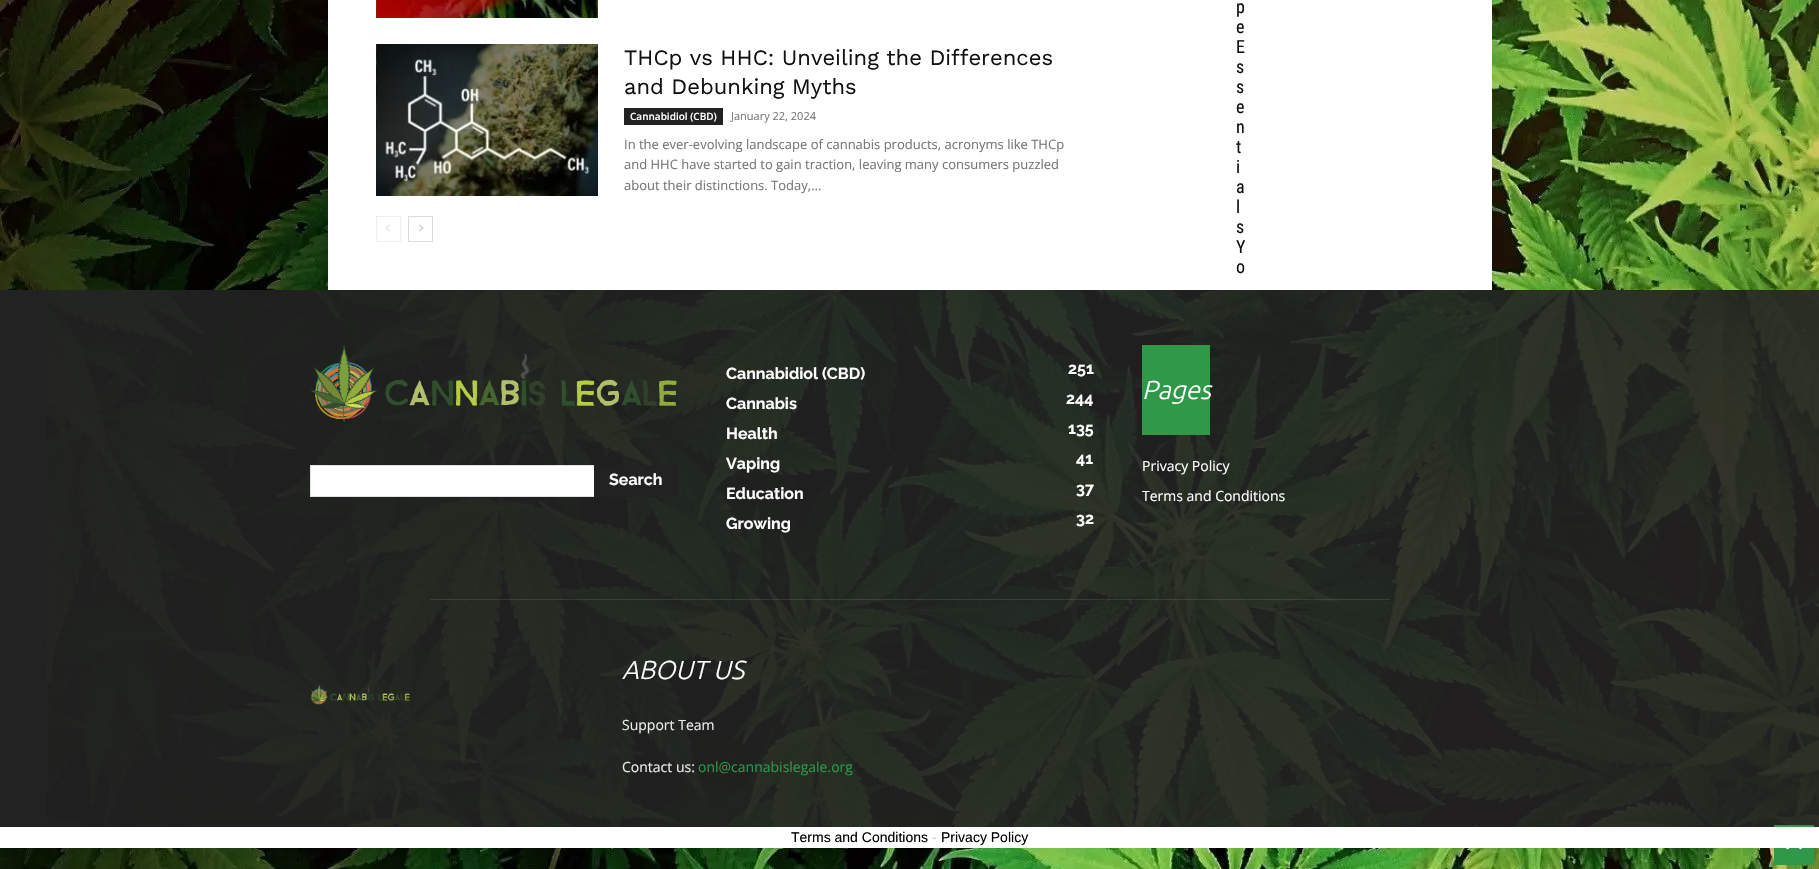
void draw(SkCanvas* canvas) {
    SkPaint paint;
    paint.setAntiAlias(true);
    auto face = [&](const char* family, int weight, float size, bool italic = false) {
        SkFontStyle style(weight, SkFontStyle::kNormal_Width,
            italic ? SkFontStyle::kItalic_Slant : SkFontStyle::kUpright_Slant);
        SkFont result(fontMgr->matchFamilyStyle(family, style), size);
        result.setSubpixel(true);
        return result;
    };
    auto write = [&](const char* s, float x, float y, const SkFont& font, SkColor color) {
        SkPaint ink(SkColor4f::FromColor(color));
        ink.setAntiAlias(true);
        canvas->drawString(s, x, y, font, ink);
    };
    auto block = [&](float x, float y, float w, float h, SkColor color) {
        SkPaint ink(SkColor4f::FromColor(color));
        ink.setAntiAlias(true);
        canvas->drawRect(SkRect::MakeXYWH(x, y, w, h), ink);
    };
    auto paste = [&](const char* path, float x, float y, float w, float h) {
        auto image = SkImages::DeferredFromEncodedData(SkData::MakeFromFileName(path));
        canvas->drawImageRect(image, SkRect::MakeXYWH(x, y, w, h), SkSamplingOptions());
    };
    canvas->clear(SK_ColorWHITE);
    paste("pic1.png", 0, 0, 1819, 869);
    block(328, 0, 1164, 290, SK_ColorWHITE);
    paste("pic2.png", 376, 0, 222, 18);
    paste("pic3.png", 376, 44, 222, 152);
    auto kFont1 = face("Work Sans", 400, 22);
    write("THCp vs HHC: Unveiling the Differences", 624, 65, kFont1, SkColorSetRGB(17, 17, 17));
    write("and Debunking Myths", 624, 94, kFont1, SkColorSetRGB(17, 17, 17));
    block(624, 108, 99, 17, SkColorSetRGB(34, 34, 34));
    auto kFont2 = face("Open Sans", 600, 10);
    write("Cannabidiol (CBD)", 630, 120, kFont2, SK_ColorWHITE);
    auto kFont3 = face("Open Sans", 400, 11);
    write("January 22, 2024", 731, 120, kFont3, SkColorSetRGB(118, 118, 118));
    auto kFont4 = face("Open Sans", 400, 13);
    write("In the ever-evolving landscape of cannabis products, acronyms like THCp", 624, 149, kFont4, SkColorSetRGB(118, 118, 118));
    write("and HHC have started to gain traction, leaving many consumers puzzled", 624, 169, kFont4, SkColorSetRGB(118, 118, 118));
    write("about their distinctions. Today,...", 624, 190, kFont4, SkColorSetRGB(118, 118, 118));
    paint.setStyle(SkPaint::kStroke_Style);
    paint.setStrokeWidth(1);
    paint.setColor(SkColorSetRGB(238, 238, 238));
    canvas->drawRect(SkRect::MakeXYWH(376.5f, 216.5f, 24, 25), paint);
    paste("pic4.png", 385, 224, 5, 8);
    paint.setColor(SkColorSetRGB(220, 220, 220));
    canvas->drawRect(SkRect::MakeXYWH(408.5f, 216.5f, 24, 25), paint);
    paste("pic5.png", 419, 224, 5, 8);
    auto kFont5 = face("Roboto Condensed", 400, 18);
    write("p", 1236, 13, kFont5, SkColorSetRGB(17, 17, 17));
    write("e", 1236, 33, kFont5, SkColorSetRGB(17, 17, 17));
    write("E", 1236, 53, kFont5, SkColorSetRGB(17, 17, 17));
    write("s", 1236, 73, kFont5, SkColorSetRGB(17, 17, 17));
    write("s", 1236, 93, kFont5, SkColorSetRGB(17, 17, 17));
    write("e", 1236, 113, kFont5, SkColorSetRGB(17, 17, 17));
    write("n", 1236, 133, kFont5, SkColorSetRGB(17, 17, 17));
    write("t", 1236, 153, kFont5, SkColorSetRGB(17, 17, 17));
    write("i", 1236, 173, kFont5, SkColorSetRGB(17, 17, 17));
    write("a", 1236, 193, kFont5, SkColorSetRGB(17, 17, 17));
    write("l", 1236, 213, kFont5, SkColorSetRGB(17, 17, 17));
    write("s", 1236, 233, kFont5, SkColorSetRGB(17, 17, 17));
    write("Y", 1236, 253, kFont5, SkColorSetRGB(17, 17, 17));
    write("o", 1236, 273, kFont5, SkColorSetRGB(17, 17, 17));
    block(0, 290, 1819, 537, SkColorSetRGB(34, 34, 34));
    paste("pic6.png", 47, 290, 1772, 537);
    paste("pic7.png", 310, 345, 367, 77);
    block(311, 466, 283, 30, SK_ColorWHITE);
    block(310, 465, 284, 1, SkColorSetRGB(225, 225, 225));
    block(310, 496, 284, 1, SkColorSetRGB(225, 225, 225));
    block(310, 465, 1, 32, SkColorSetRGB(225, 225, 225));
    block(594, 465, 84, 32, SkColorSetRGB(34, 34, 34));
    auto kFont6 = face("Raleway", 700, 16);
    write("Search", 609, 485, kFont6, SK_ColorWHITE);
    write("Cannabidiol (CBD)", 726, 379, kFont6, SK_ColorWHITE);
    write("251", 1068, 374, kFont6, SK_ColorWHITE);
    write("Cannabis", 726, 409, kFont6, SK_ColorWHITE);
    write("244", 1066, 404, kFont6, SK_ColorWHITE);
    write("Health", 726, 439, kFont6, SK_ColorWHITE);
    write("135", 1068, 434, kFont6, SK_ColorWHITE);
    write("Vaping", 726, 469, kFont6, SK_ColorWHITE);
    write("41", 1076, 464, kFont6, SK_ColorWHITE);
    write("Education", 726, 499, kFont6, SK_ColorWHITE);
    write("37", 1076, 494, kFont6, SK_ColorWHITE);
    write("Growing", 726, 529, kFont6, SK_ColorWHITE);
    write("32", 1076, 524, kFont6, SK_ColorWHITE);
    block(1142, 345, 68, 90, SkColorSetRGB(47, 153, 73));
    auto kFont7 = face("Ubuntu", 300, 26, true);
    write("Pages", 1142, 399, kFont7, SK_ColorWHITE);
    auto kFont8 = face("Open Sans", 400, 14);
    write("Privacy Policy", 1142, 471, kFont8, SK_ColorWHITE);
    write("Terms and Conditions", 1142, 501, kFont8, SK_ColorWHITE);
    block(430, 599, 960, 1, SkColorSetARGB(26, 255, 255, 255));
    paste("pic8.png", 310, 684, 100, 21);
    write("ABOUT US", 622, 679, kFont7, SK_ColorWHITE);
    write("Support Team", 622, 730, kFont8, SkColorSetRGB(234, 234, 234));
    write("Contact us:", 622, 772, kFont8, SkColorSetRGB(234, 234, 234));
    write("onl@cannabislegale.org", 698, 772, kFont8, SkColorSetRGB(47, 153, 73));
    block(1774, 825, 40, 40, SkColorSetRGB(47, 153, 73));
    block(0, 827, 1819, 21, SK_ColorWHITE);
    auto kFont9 = face("Liberation Sans", 400, 14);
    write("Terms and Conditions", 791, 842, kFont9, SK_ColorBLACK);
    write("-", 932, 842, kFont9, SkColorSetRGB(204, 204, 204));
    write("Privacy Policy", 941, 842, kFont9, SK_ColorBLACK);
    paste("pic9.png", 1786, 848, 16, 2);
}
